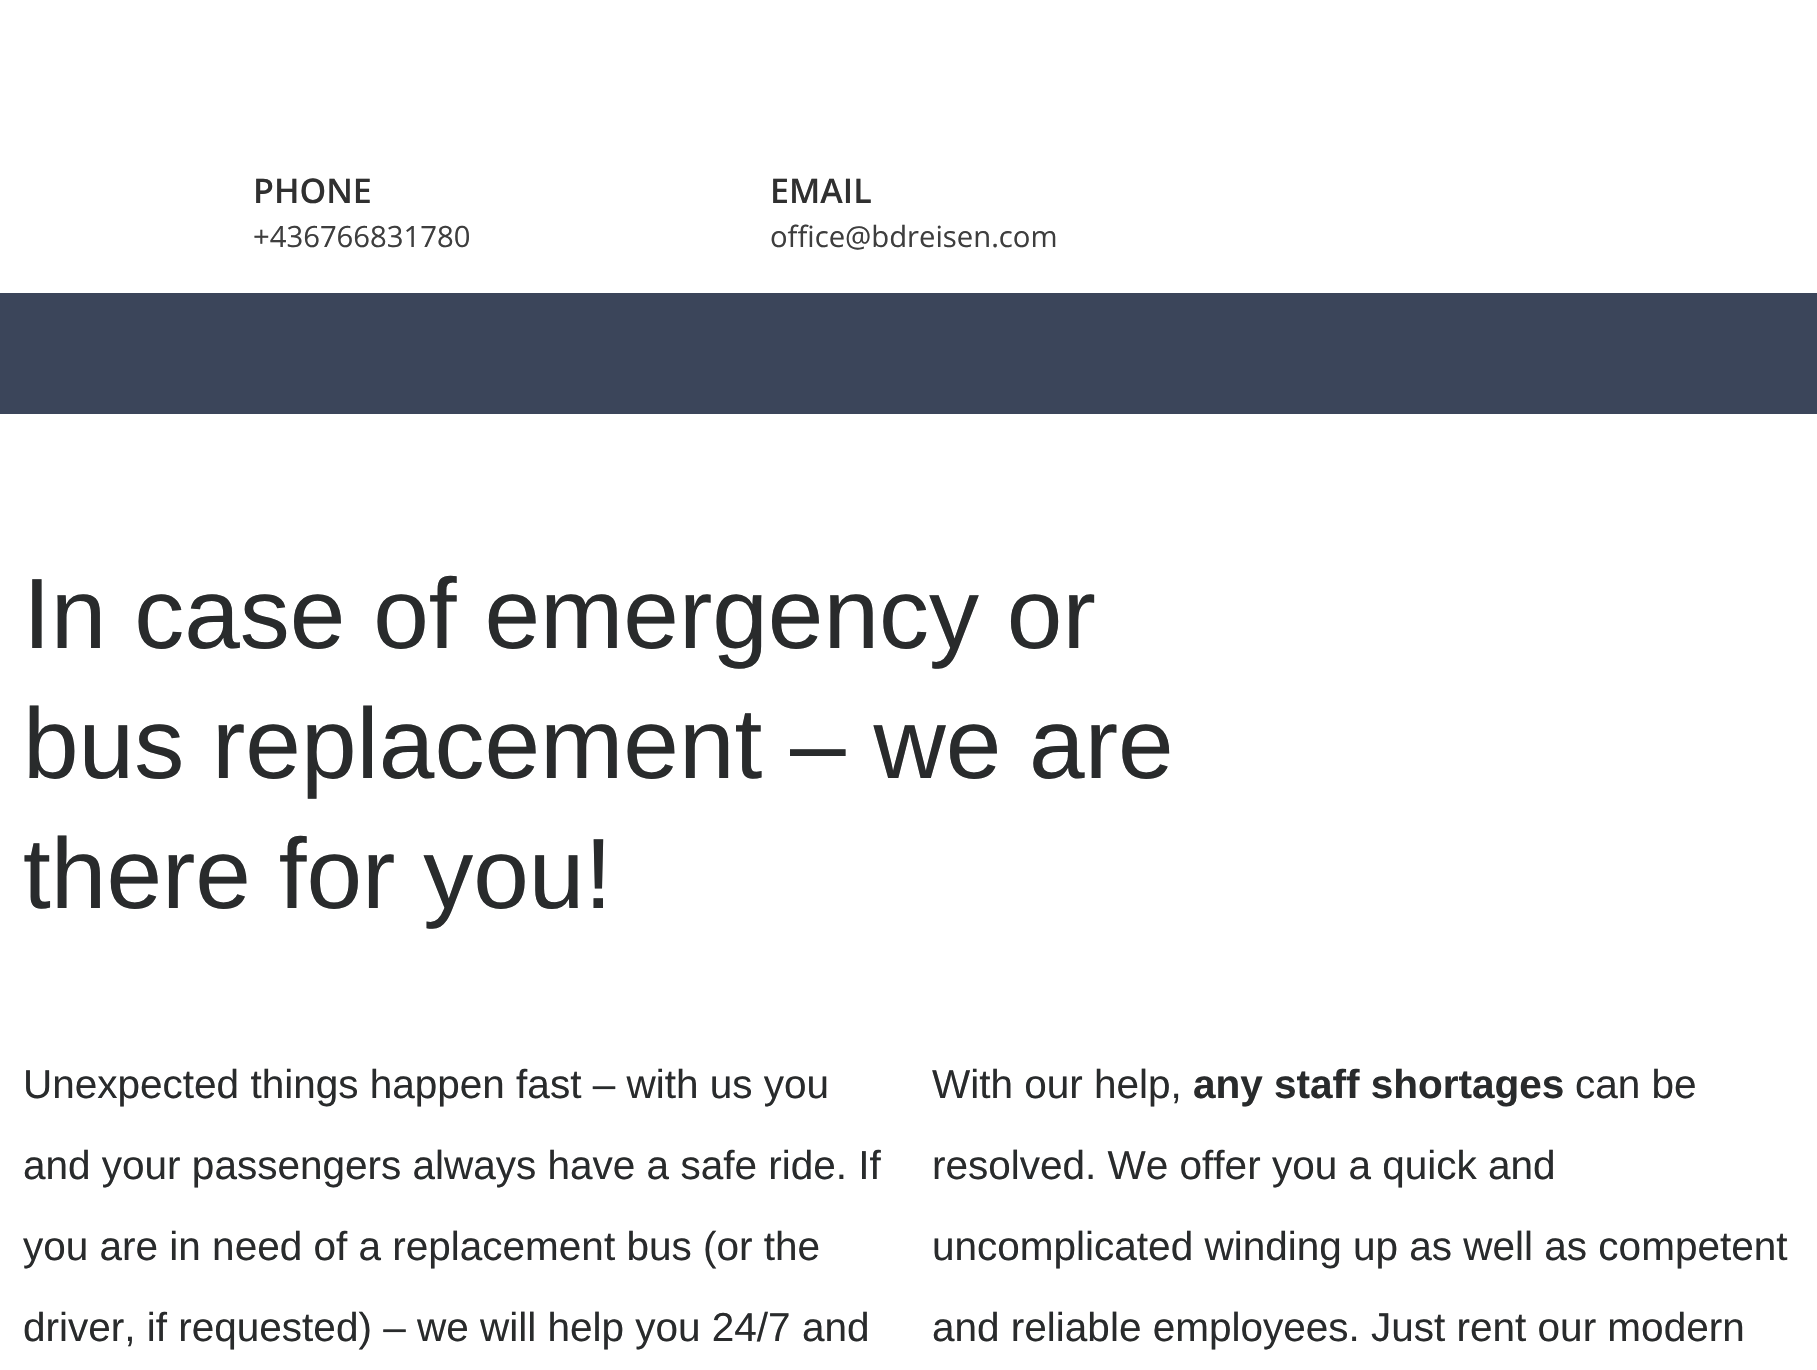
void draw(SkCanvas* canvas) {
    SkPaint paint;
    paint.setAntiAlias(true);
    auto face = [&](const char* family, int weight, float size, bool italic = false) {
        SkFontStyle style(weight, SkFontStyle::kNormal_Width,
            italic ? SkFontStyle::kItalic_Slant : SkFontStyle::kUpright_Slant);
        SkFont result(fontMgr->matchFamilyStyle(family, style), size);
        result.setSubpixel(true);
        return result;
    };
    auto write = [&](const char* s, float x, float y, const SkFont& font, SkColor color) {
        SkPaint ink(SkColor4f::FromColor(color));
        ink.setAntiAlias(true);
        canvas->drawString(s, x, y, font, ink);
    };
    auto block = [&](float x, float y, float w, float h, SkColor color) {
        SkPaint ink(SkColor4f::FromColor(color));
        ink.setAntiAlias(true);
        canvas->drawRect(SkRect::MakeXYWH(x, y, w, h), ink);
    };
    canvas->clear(SK_ColorWHITE);
    auto kFont1 = face("Open Sans", 600, 34);
    write("PHONE", 253, 203, kFont1, SkColorSetRGB(48, 48, 48));
    auto kFont2 = face("Open Sans", 400, 29.25f);
    write("+436766831780", 253, 247, kFont2, SkColorSetRGB(62, 62, 62));
    write("EMAIL", 770, 203, kFont1, SkColorSetRGB(48, 48, 48));
    write("office@bdreisen.com", 770, 247, kFont2, SkColorSetRGB(62, 62, 62));
    block(0, 293, 1817, 121, SkColorSetRGB(59, 69, 90));
    auto kFont3 = face("Liberation Sans", 400, 100);
    write("In case of emergency or", 23, 648, kFont3, SkColorSetRGB(41, 43, 44));
    write("bus replacement – we are", 23, 778, kFont3, SkColorSetRGB(41, 43, 44));
    write("there for you!", 23, 908, kFont3, SkColorSetRGB(41, 43, 44));
    auto kFont4 = face("Liberation Sans", 400, 40.5f);
    write("Unexpected things happen fast – with us you", 23, 1098, kFont4, SkColorSetRGB(41, 43, 44));
    write("and your passengers always have a safe ride. If", 23, 1179, kFont4, SkColorSetRGB(41, 43, 44));
    write("you are in need of a replacement bus (or the", 23, 1260, kFont4, SkColorSetRGB(41, 43, 44));
    write("driver, if requested) – we will help you 24/7 and", 23, 1341, kFont4, SkColorSetRGB(41, 43, 44));
    write("With our help,", 932, 1098, kFont4, SkColorSetRGB(41, 43, 44));
    auto kFont5 = face("Liberation Sans", 700, 40.5f);
    write("any staff shortages", 1193, 1098, kFont5, SkColorSetRGB(41, 43, 44));
    write("can be", 1575, 1098, kFont4, SkColorSetRGB(41, 43, 44));
    write("resolved. We offer you a quick and", 932, 1179, kFont4, SkColorSetRGB(41, 43, 44));
    write("uncomplicated winding up as well as competent", 932, 1260, kFont4, SkColorSetRGB(41, 43, 44));
    write("and reliable employees. Just rent our modern", 932, 1341, kFont4, SkColorSetRGB(41, 43, 44));
}
